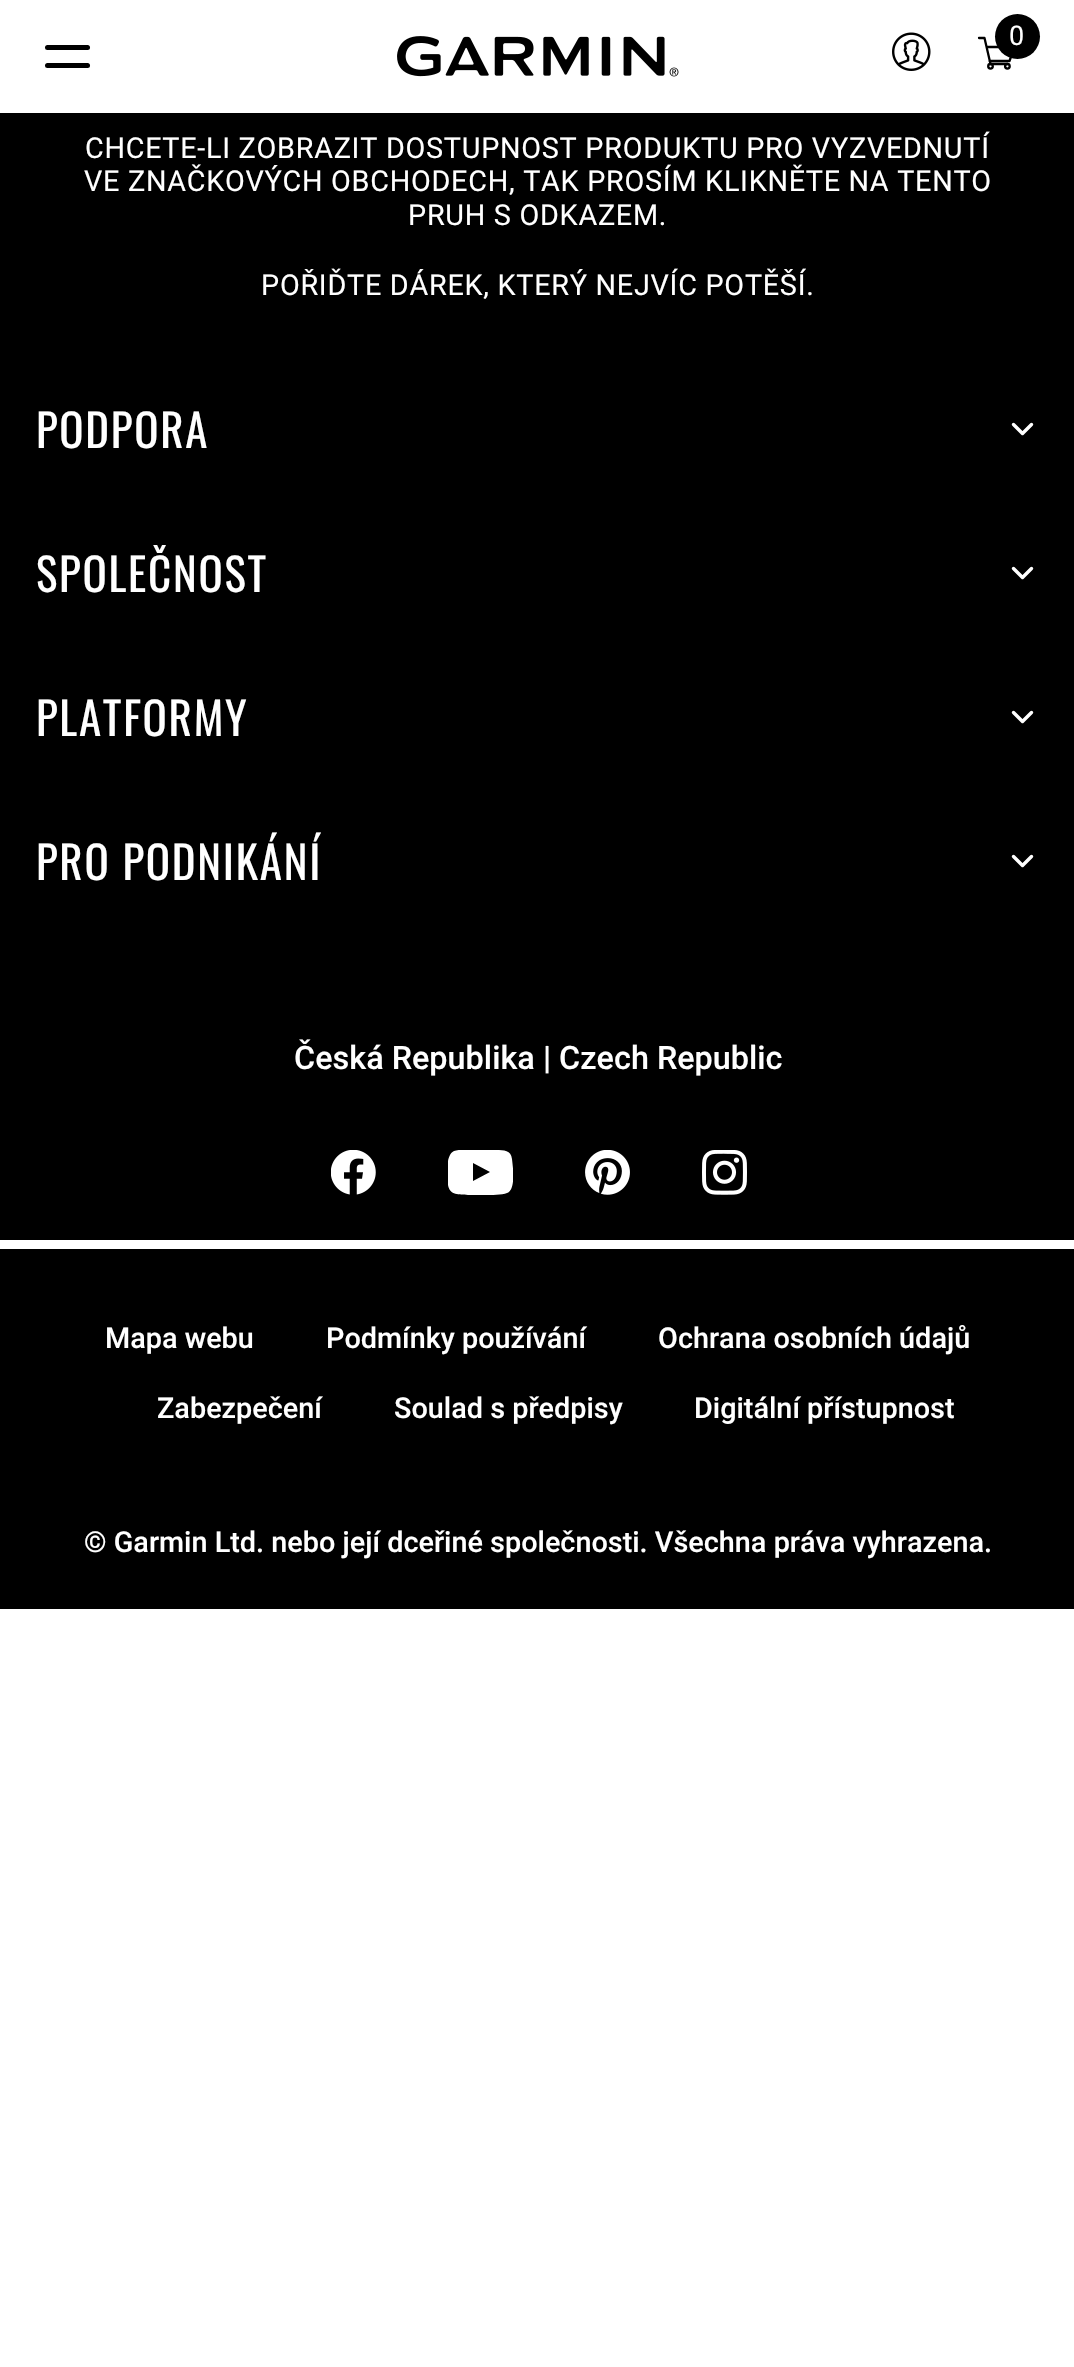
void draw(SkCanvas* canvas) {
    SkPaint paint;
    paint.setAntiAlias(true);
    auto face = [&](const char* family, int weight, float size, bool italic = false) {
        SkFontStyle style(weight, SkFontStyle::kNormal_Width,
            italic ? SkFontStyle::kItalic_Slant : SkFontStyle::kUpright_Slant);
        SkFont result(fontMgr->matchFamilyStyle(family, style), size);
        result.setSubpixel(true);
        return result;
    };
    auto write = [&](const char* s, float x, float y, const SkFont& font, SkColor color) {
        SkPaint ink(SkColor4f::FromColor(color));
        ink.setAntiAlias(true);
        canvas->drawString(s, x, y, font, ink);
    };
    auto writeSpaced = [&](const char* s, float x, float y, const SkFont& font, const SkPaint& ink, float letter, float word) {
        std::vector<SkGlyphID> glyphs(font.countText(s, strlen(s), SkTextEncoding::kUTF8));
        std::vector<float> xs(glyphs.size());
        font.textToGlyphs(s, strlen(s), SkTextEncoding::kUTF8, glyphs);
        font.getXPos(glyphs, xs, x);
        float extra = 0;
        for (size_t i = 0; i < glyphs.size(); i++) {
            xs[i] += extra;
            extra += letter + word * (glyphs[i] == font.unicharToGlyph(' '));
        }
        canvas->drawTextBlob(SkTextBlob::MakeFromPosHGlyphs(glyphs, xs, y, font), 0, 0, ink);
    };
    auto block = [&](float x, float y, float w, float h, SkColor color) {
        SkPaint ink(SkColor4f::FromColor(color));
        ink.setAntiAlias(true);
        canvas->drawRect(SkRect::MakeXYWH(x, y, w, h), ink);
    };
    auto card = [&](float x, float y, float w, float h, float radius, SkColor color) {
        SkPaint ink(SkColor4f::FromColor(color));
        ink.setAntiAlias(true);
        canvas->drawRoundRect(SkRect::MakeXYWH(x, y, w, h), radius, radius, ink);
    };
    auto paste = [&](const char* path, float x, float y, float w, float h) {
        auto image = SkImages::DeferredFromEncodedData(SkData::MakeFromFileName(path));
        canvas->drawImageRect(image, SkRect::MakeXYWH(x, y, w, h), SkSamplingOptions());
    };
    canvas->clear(SK_ColorWHITE);
    card(45, 45, 45, 5, 2.5f, SK_ColorBLACK);
    card(45, 63, 45, 5, 2.5f, SK_ColorBLACK);
    paste("pic1.png", 397, 36, 282, 41);
    paste("pic2.png", 892, 32, 39, 39);
    paint.setStyle(SkPaint::kStroke_Style);
    paint.setStrokeWidth(2.3f);
    paint.setColor(SK_ColorBLACK);
    canvas->drawCircle(990.5f, 66.3f, 2.3f, paint);
    canvas->drawCircle(1007.4f, 66.3f, 2.3f, paint);
    paint.setStrokeCap(SkPaint::kRound_Cap);
    paint.setStrokeJoin(SkPaint::kRound_Join);
    canvas->drawPath(SkPathBuilder().moveTo(979, 38).lineTo(984.5f, 38).lineTo(990.5f, 64).lineTo(1007.5f, 64).moveTo(989.5f, 61).lineTo(1009.5f, 61).lineTo(1014.5f, 47).lineTo(986.5f, 47).detach(), paint);
    paint.setStyle(SkPaint::kFill_Style);
    canvas->drawCircle(1017.5f, 36.5f, 22.5f, paint);
    auto kFont1 = face("Roboto", 400, 27);
    write("0", 1009, 45, kFont1, SK_ColorWHITE);
    block(0, 113, 1074, 207, SK_ColorBLACK);
    auto kFont2 = face("Roboto", 400, 28.8f);
    paint.setColor(SK_ColorWHITE);
    writeSpaced("CHCETE-LI ZOBRAZIT DOSTUPNOST PRODUKTU PRO VYZVEDNUTÍ", 85, 158, kFont2, paint, 0.72f, 0);
    writeSpaced("VE ZNAČKOVÝCH OBCHODECH, TAK PROSÍM KLIKNĚTE NA TENTO", 84, 191, kFont2, paint, 0.72f, 0);
    writeSpaced("PRUH S ODKAZEM.", 408, 225, kFont2, paint, 0.72f, 0);
    writeSpaced("POŘIĎTE DÁREK, KTERÝ NEJVÍC POTĚŠÍ.", 261, 295, kFont2, paint, 0.72f, 0);
    block(0, 320, 1074, 1289, SK_ColorBLACK);
    auto kFont3 = face("Oswald", 400, 45);
    writeSpaced("PODPORA", 36, 448, kFont3, paint, 1.75f, 0);
    paint.setStyle(SkPaint::kStroke_Style);
    paint.setStrokeWidth(3.4f);
    canvas->drawPath(SkPathBuilder().moveTo(1031.5f, 424.5f).lineTo(1022.5f, 433.5f).lineTo(1013.5f, 424.5f).detach(), paint);
    paint.setStyle(SkPaint::kFill_Style);
    writeSpaced("SPOLEČNOST", 36, 592, kFont3, paint, 1.75f, 0);
    paint.setStyle(SkPaint::kStroke_Style);
    canvas->drawPath(SkPathBuilder().moveTo(1031.5f, 568.5f).lineTo(1022.5f, 577.5f).lineTo(1013.5f, 568.5f).detach(), paint);
    paint.setStyle(SkPaint::kFill_Style);
    writeSpaced("PLATFORMY", 36, 736, kFont3, paint, 1.75f, 0);
    paint.setStyle(SkPaint::kStroke_Style);
    canvas->drawPath(SkPathBuilder().moveTo(1031.5f, 712.5f).lineTo(1022.5f, 721.5f).lineTo(1013.5f, 712.5f).detach(), paint);
    paint.setStyle(SkPaint::kFill_Style);
    writeSpaced("PRO PODNIKÁNÍ", 36, 880, kFont3, paint, 1.75f, 0);
    paint.setStyle(SkPaint::kStroke_Style);
    canvas->drawPath(SkPathBuilder().moveTo(1031.5f, 856.5f).lineTo(1022.5f, 865.5f).lineTo(1013.5f, 856.5f).detach(), paint);
    block(0, 1240, 1074, 9, SK_ColorWHITE);
    auto kFont4 = face("Roboto", 500, 32.4f);
    write("Česká Republika | Czech Republic", 294, 1069, kFont4, SK_ColorWHITE);
    paste("pic3.png", 331, 1150, 45, 45);
    canvas->save();
    canvas->clipRect(SkRect::MakeXYWH(448, 1150, 65, 45));
    paint.setStyle(SkPaint::kFill_Style);
    canvas->drawPath(SkPathBuilder().moveTo(473, 1181).lineTo(473, 1163).lineTo(490, 1172).close().moveTo(512, 1159).cubicTo(511, 1150, 504, 1150, 496, 1150).lineTo(476, 1150).cubicTo(470, 1150, 459, 1149, 454, 1151).cubicTo(445, 1155, 447, 1178, 448, 1185).cubicTo(450, 1196, 459, 1194, 468, 1195).lineTo(485, 1195).cubicTo(491, 1195, 502, 1195, 507, 1193).cubicTo(516, 1190, 513, 1167, 512, 1159).close().detach(), paint);
    canvas->restore();
    paste("pic4.png", 585, 1150, 45, 45);
    paste("pic5.png", 702, 1150, 45, 45);
    auto kFont5 = face("Roboto", 500, 28.8f);
    write("Mapa webu", 105, 1348, kFont5, SK_ColorWHITE);
    write("Podmínky používání", 326, 1348, kFont5, SK_ColorWHITE);
    write("Ochrana osobních údajů", 658, 1348, kFont5, SK_ColorWHITE);
    write("Zabezpečení", 157, 1418, kFont5, SK_ColorWHITE);
    write("Soulad s předpisy", 394, 1418, kFont5, SK_ColorWHITE);
    write("Digitální přístupnost", 694, 1418, kFont5, SK_ColorWHITE);
    write("© Garmin Ltd. nebo její dceřiné společnosti. Všechna práva vyhrazena.", 84, 1552, kFont5, SK_ColorWHITE);
}
